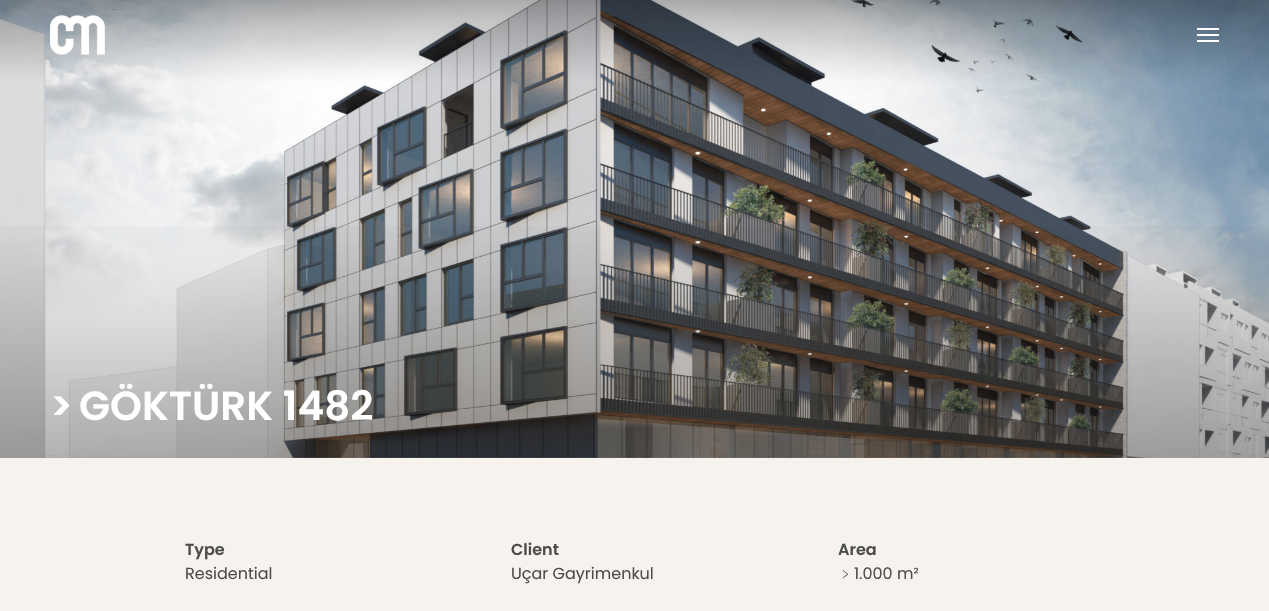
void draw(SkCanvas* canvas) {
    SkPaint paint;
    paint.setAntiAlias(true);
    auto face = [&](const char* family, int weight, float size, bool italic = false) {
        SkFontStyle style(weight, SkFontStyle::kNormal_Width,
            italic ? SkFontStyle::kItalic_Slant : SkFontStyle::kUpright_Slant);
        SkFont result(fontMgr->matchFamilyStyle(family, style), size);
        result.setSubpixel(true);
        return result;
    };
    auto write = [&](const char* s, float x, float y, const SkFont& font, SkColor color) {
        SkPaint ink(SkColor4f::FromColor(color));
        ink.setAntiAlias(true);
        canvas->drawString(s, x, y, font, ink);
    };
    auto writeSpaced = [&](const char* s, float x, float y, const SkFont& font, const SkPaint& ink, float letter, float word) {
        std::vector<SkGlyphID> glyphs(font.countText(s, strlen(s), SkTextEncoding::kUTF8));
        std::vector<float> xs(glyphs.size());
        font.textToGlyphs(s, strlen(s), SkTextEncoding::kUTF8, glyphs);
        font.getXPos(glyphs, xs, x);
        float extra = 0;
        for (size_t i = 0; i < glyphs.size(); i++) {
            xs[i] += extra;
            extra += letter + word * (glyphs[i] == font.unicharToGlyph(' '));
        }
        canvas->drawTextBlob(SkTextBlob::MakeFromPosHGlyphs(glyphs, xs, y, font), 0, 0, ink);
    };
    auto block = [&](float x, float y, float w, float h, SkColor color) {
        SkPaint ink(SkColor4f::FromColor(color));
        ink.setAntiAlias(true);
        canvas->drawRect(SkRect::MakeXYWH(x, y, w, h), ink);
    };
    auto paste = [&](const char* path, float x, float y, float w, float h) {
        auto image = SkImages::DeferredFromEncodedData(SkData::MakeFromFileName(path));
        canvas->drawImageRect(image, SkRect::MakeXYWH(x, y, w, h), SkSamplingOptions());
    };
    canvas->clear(SkColorSetRGB(246, 243, 239));
    paste("pic2.png", 0, 0, 1269, 458);
    paste("pic1.png", 50, 15, 55, 40);
    block(1197, 28, 22, 2, SK_ColorWHITE);
    block(1197, 40, 22, 2, SK_ColorWHITE);
    block(1197, 34, 22, 2, SK_ColorWHITE);
    {
        const SkColor colors[] = {SkColorSetARGB(77, 0, 0, 0), SkColorSetARGB(0, 0, 0, 0)};
        const float stops[] = {0, 1};
        const SkPoint ends[] = {{635, 458}, {635, 208}};
        paint.setShader(SkGradientShader::MakeLinear(ends, colors, stops, 2, SkTileMode::kClamp));
        paint.setAlpha(255);
    }
    canvas->drawRect(SkRect::MakeXYWH(0, 226, 1269, 232), paint);
    auto kFont1 = face("Poppins", 600, 40.5f);
    paint.setShader(nullptr);
    paint.setColor(SK_ColorWHITE);
    writeSpaced(">", 50, 420, kFont1, paint, -2, 0);
    write("GÖKTÜRK 1482", 79, 420, kFont1, SK_ColorWHITE);
    auto kFont2 = face("Poppins", 600, 16);
    write("Type", 185, 555, kFont2, SkColorSetRGB(77, 77, 77));
    auto kFont3 = face("Poppins", 400, 16);
    write("Residential", 185, 579, kFont3, SkColorSetRGB(77, 77, 77));
    write("Client", 511, 555, kFont2, SkColorSetRGB(77, 77, 77));
    write("Uçar Gayrimenkul", 511, 579, kFont3, SkColorSetRGB(77, 77, 77));
    write("Area", 838, 555, kFont2, SkColorSetRGB(77, 77, 77));
    auto kFont4 = face("WenQuanYi Zen Hei", 500, 16);
    write("﹥", 838, 579, kFont4, SkColorSetRGB(77, 77, 77));
    write("1.000 m²", 854, 579, kFont3, SkColorSetRGB(77, 77, 77));
}
